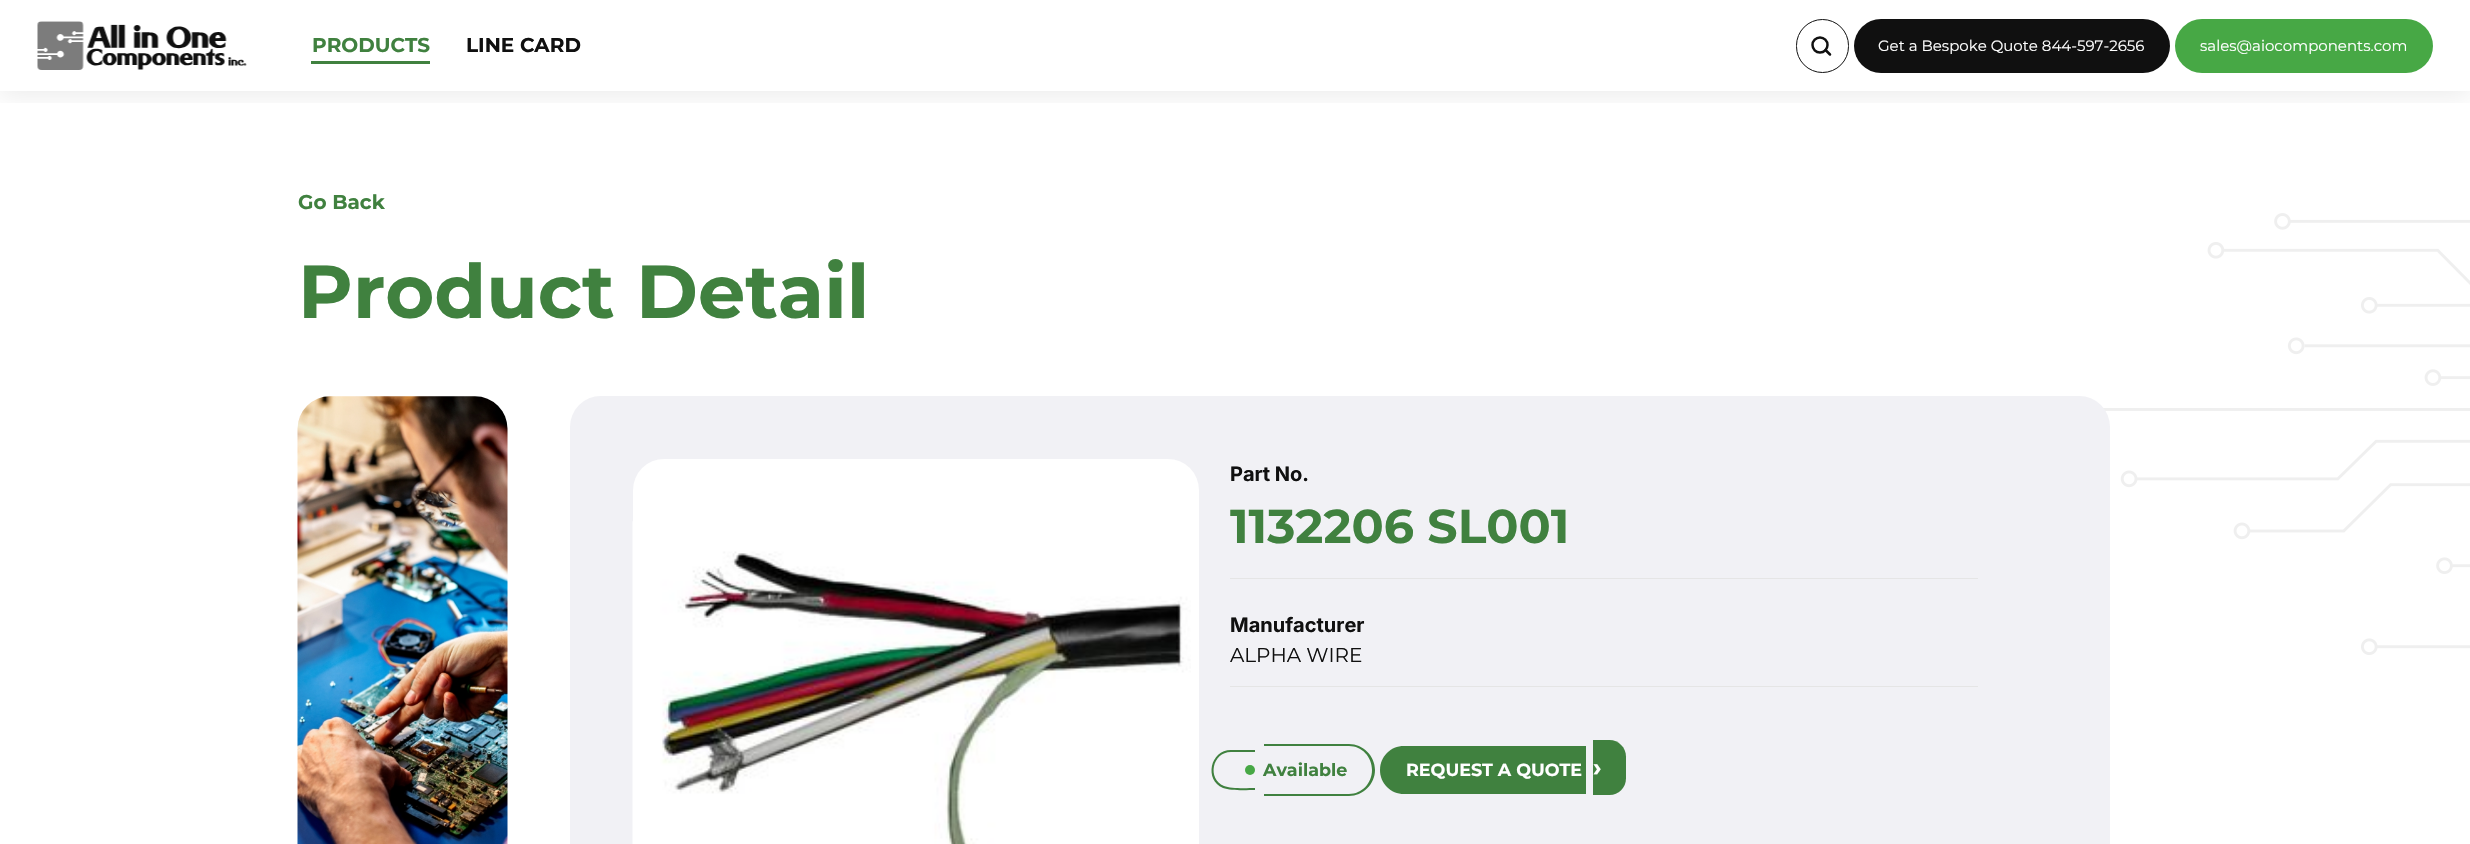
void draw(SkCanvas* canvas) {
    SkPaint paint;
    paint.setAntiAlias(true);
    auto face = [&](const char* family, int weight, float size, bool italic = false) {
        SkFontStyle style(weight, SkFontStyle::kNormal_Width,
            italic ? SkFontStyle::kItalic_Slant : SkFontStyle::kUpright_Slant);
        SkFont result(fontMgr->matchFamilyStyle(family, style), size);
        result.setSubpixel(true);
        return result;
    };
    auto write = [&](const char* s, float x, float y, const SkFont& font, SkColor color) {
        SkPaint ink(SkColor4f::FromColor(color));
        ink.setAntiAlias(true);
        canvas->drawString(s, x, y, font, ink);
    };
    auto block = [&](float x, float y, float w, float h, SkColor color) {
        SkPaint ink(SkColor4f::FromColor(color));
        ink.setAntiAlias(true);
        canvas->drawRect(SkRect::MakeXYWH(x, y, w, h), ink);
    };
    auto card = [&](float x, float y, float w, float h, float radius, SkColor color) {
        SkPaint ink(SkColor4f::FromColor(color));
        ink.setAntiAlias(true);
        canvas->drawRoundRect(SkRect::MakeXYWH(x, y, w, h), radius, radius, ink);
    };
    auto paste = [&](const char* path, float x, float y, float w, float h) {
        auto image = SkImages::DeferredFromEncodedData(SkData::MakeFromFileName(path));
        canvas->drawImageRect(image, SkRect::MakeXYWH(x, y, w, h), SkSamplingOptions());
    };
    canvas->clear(SK_ColorWHITE);
    canvas->save();
    canvas->clipRect(SkRect::MakeXYWH(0, 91, 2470, 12));
    paint.setColor(SkColorSetARGB(20, 0, 0, 0));
    paint.setMaskFilter(SkMaskFilter::MakeBlur(kNormal_SkBlurStyle, 12.5f));
    canvas->drawRect(SkRect::MakeXYWH(0, 4, 2470, 91), paint);
    paint.setMaskFilter(nullptr);
    canvas->restore();
    paste("pic1.png", 37, 21, 210, 49);
    auto kFont1 = face("Montserrat", 700, 20);
    write("PRODUCTS", 312, 52, kFont1, SkColorSetRGB(64, 129, 63));
    block(311, 61, 119, 3, SkColorSetRGB(64, 129, 63));
    write("LINE CARD", 466, 52, kFont1, SkColorSetRGB(16, 16, 16));
    paint.setStyle(SkPaint::kStroke_Style);
    paint.setStrokeWidth(1);
    paint.setColor(SkColorSetRGB(16, 16, 16));
    canvas->drawRoundRect(SkRect::MakeXYWH(1796.5f, 19.5f, 52, 53), 26, 26, paint);
    paint.setStrokeWidth(2.5f);
    canvas->drawCircle(1820, 45, 7.5f, paint);
    paint.setStrokeCap(SkPaint::kRound_Cap);
    paint.setStrokeJoin(SkPaint::kRound_Join);
    canvas->drawPath(SkPathBuilder().moveTo(1830, 54.5f).lineTo(1825.5f, 50).detach(), paint);
    card(1854, 19, 316, 54, 27, SkColorSetRGB(16, 16, 16));
    auto kFont2 = face("Montserrat", 400, 15);
    write("Get a Bespoke Quote 844-597-2656", 1878, 51, kFont2, SK_ColorWHITE);
    card(2175, 19, 258, 54, 27, SkColorSetRGB(71, 168, 69));
    write("sales@aiocomponents.com", 2200, 51, kFont2, SK_ColorWHITE);
    write("Go Back", 298, 209, kFont1, SkColorSetRGB(64, 129, 63));
    auto kFont3 = face("Montserrat", 700, 75);
    write("Product Detail", 298, 318, kFont3, SkColorSetRGB(64, 129, 63));
    paste("pic2.png", 297, 396, 211, 448);
    paste("pic4.png", 2103, 213, 367, 442);
    card(570, 396, 1540, 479, 31, SkColorSetRGB(241, 241, 245));
    card(633, 459, 566, 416, 31, SK_ColorWHITE);
    paste("pic3.png", 632, 521, 559, 323);
    auto kFont4 = face("Inter", 700, 20);
    write("Part No.", 1230, 481, kFont4, SkColorSetRGB(16, 16, 16));
    auto kFont5 = face("Montserrat", 700, 47.5f);
    write("1132206 SL001", 1230, 543, kFont5, SkColorSetRGB(64, 129, 63));
    block(1230, 578, 748, 1, SkColorSetRGB(229, 229, 229));
    write("Manufacturer", 1230, 632, kFont4, SkColorSetRGB(16, 16, 16));
    auto kFont6 = face("Montserrat", 400, 20);
    write("ALPHA WIRE", 1230, 662, kFont6, SkColorSetRGB(16, 16, 16));
    block(1230, 686, 748, 1, SkColorSetRGB(229, 229, 229));
    paint.setStyle(SkPaint::kFill_Style);
    paint.setColor(SkColorSetRGB(64, 129, 63));
    canvas->drawPath(SkPathBuilder(SkPathFillType::kEvenOdd).moveTo(1231, 750).lineTo(1255, 750).lineTo(1255, 790).cubicTo(1247, 790, 1231, 791, 1223, 788).cubicTo(1204, 780, 1210, 750, 1231, 750).close().moveTo(1231, 752).lineTo(1255, 752).lineTo(1255, 788).cubicTo(1248, 788, 1231, 789, 1224, 786).cubicTo(1207, 779, 1212, 752, 1231, 752).close().detach(), paint);
    canvas->drawPath(SkPathBuilder(SkPathFillType::kEvenOdd).moveTo(1264, 744).lineTo(1349, 744).cubicTo(1363, 744, 1375, 756, 1375, 770).cubicTo(1375, 784, 1363, 796, 1349, 796).lineTo(1264, 796).close().moveTo(1264, 746).lineTo(1349, 746).cubicTo(1362, 746, 1372, 757, 1372, 770).cubicTo(1372, 783, 1362, 794, 1349, 794).lineTo(1264, 794).close().detach(), paint);
    paint.setColor(SkColorSetRGB(71, 168, 69));
    canvas->drawCircle(1250, 770, 5, paint);
    auto kFont7 = face("Montserrat", 700, 17.5f);
    write("Available", 1263, 776, kFont7, SkColorSetRGB(64, 129, 63));
    paint.setColor(SkColorSetRGB(64, 129, 63));
    canvas->drawPath(SkPathBuilder().moveTo(1404, 746).lineTo(1586, 746).lineTo(1586, 794).lineTo(1404, 794).cubicTo(1390.5f, 794, 1380, 783.5f, 1380, 770).cubicTo(1380, 756.5f, 1390.5f, 746, 1404, 746).close().detach(), paint);
    write("REQUEST A QUOTE", 1406, 776, kFont7, SK_ColorWHITE);
    canvas->drawPath(SkPathBuilder().moveTo(1593, 740).lineTo(1609.5f, 740).cubicTo(1618.5f, 740, 1626, 747.5f, 1626, 756.5f).lineTo(1626, 778.5f).cubicTo(1626, 787.5f, 1618.5f, 795, 1609.5f, 795).lineTo(1593, 795).close().detach(), paint);
    auto kFont8 = face("Montserrat", 700, 25);
    write("›", 1593, 776, kFont8, SK_ColorWHITE);
}
